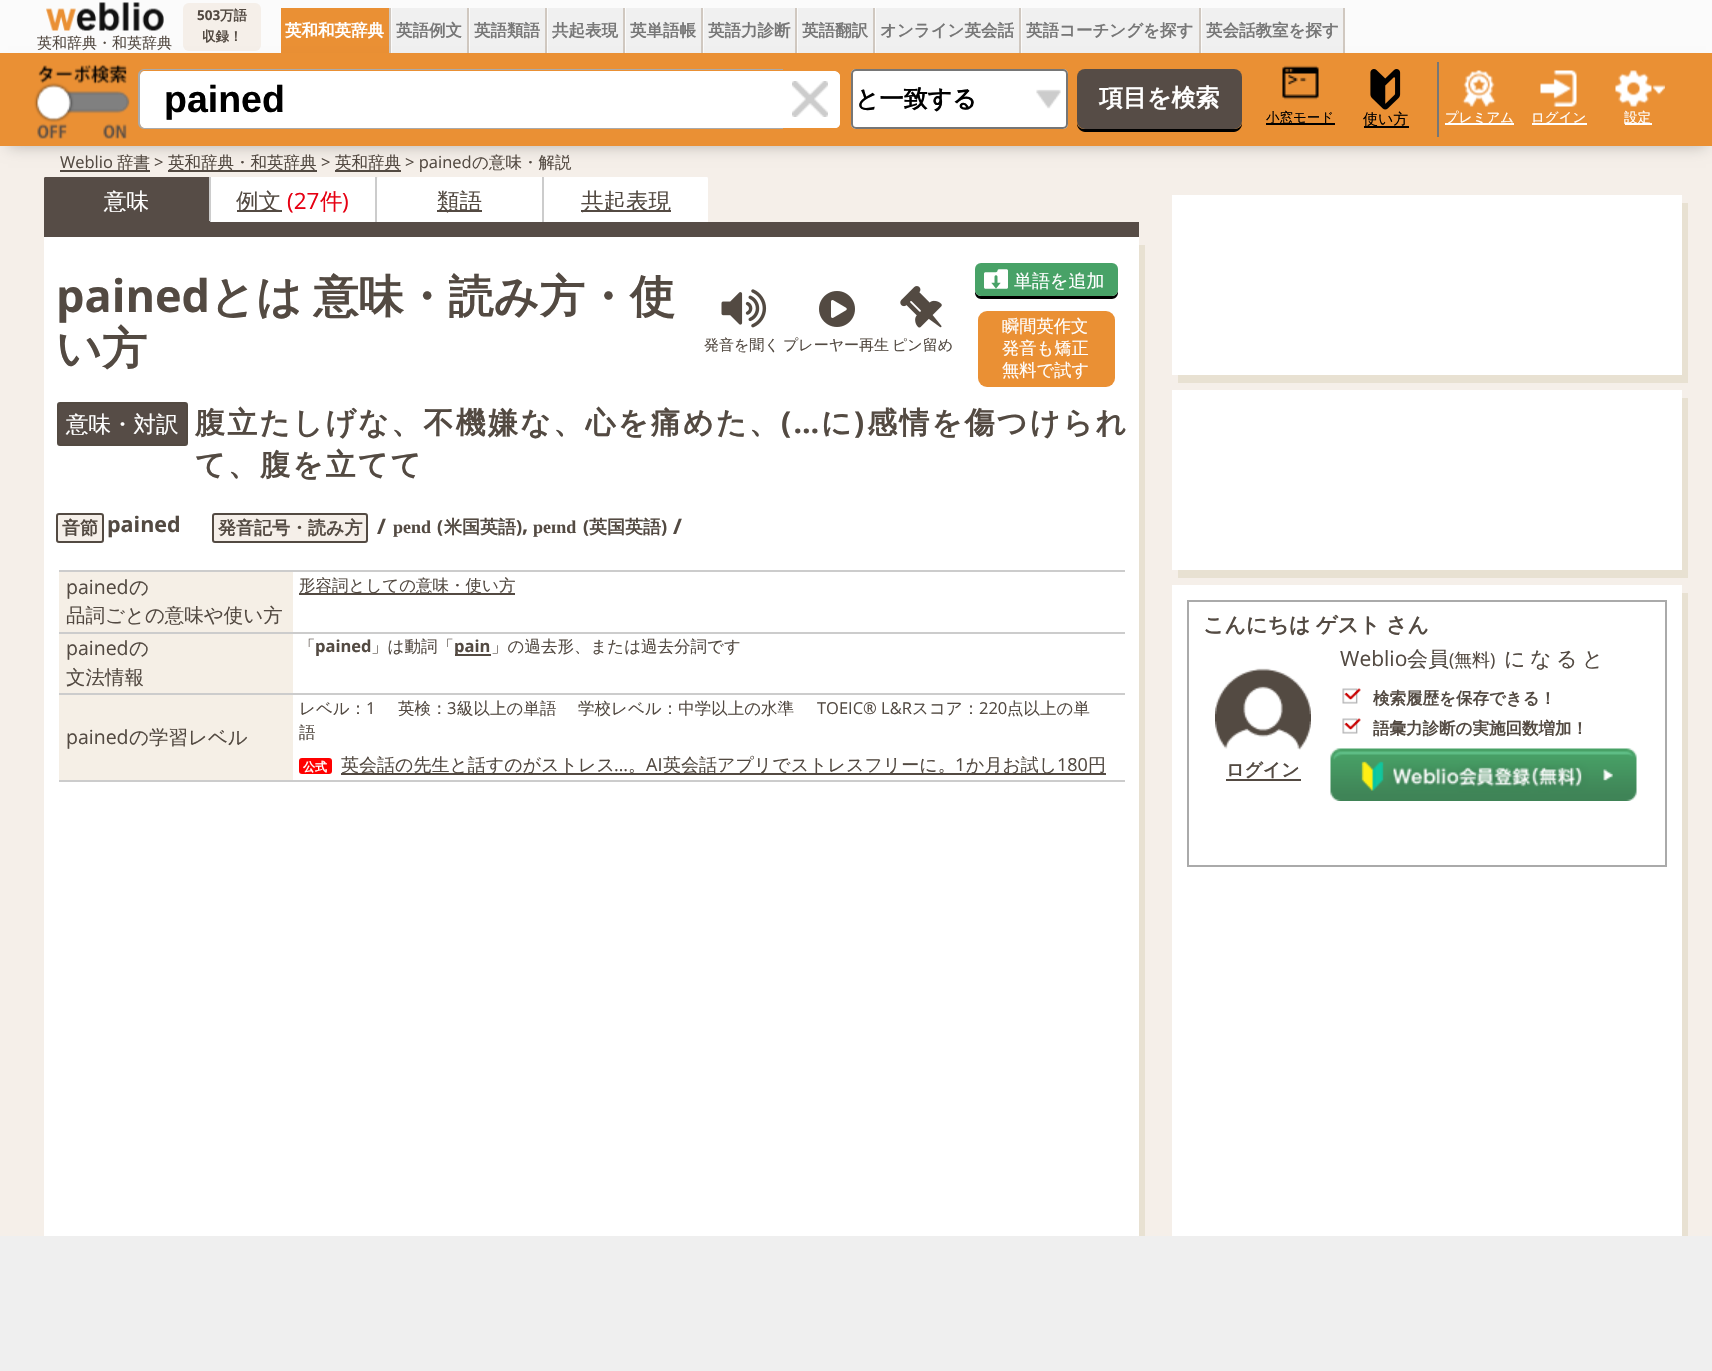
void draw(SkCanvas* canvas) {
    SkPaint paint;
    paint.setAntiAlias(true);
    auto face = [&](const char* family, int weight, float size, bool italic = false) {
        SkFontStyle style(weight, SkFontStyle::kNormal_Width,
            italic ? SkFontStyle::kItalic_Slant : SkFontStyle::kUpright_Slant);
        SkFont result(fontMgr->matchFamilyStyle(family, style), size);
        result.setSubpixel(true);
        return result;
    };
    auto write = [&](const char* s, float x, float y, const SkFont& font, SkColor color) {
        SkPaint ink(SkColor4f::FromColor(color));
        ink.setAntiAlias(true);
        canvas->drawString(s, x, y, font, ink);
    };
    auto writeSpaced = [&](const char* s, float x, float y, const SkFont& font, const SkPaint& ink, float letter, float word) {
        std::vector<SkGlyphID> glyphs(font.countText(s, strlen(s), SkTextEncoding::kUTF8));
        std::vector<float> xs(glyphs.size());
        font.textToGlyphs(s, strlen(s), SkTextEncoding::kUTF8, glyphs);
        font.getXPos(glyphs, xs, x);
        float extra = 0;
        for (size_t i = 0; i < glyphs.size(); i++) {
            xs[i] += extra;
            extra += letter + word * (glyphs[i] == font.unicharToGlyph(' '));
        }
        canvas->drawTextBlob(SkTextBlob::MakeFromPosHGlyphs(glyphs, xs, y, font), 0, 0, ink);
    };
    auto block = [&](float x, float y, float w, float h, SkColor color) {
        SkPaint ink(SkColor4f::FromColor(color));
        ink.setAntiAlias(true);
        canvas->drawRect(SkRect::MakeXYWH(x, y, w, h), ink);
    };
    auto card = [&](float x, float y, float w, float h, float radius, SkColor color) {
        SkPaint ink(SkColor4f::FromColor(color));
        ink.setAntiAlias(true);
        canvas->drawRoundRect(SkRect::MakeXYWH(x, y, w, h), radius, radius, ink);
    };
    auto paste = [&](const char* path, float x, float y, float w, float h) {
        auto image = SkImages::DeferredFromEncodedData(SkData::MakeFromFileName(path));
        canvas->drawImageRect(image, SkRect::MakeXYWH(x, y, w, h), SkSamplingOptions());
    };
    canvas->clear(SkColorSetRGB(245, 239, 233));
    block(0, 0, 1712, 53, SkColorSetRGB(251, 251, 251));
    card(183, 3, 78, 48, 6, SkColorSetRGB(245, 239, 233));
    auto kFont1 = face("Open Sans", 700, 13.5f);
    write("503", 197, 20, kFont1, SkColorSetRGB(83, 74, 66));
    auto kFont2 = face("WenQuanYi Zen Hei", 700, 13.5f);
    write("万語", 220, 20, kFont2, SkColorSetRGB(83, 74, 66));
    write("収録！", 202, 41, kFont2, SkColorSetRGB(83, 74, 66));
    block(281, 8, 108, 45, SkColorSetRGB(234, 144, 52));
    block(389, 8, 2, 46, SkColorSetRGB(208, 200, 192));
    auto kFont3 = face("WenQuanYi Zen Hei", 700, 16.5f);
    write("英和和英辞典", 285, 36, kFont3, SK_ColorWHITE);
    block(392, 8, 75, 45, SkColorSetRGB(240, 240, 240));
    block(467, 8, 2, 46, SkColorSetRGB(208, 200, 192));
    write("英語例文", 396, 36, kFont3, SkColorSetRGB(119, 119, 119));
    block(470, 8, 75, 45, SkColorSetRGB(240, 240, 240));
    block(545, 8, 2, 46, SkColorSetRGB(208, 200, 192));
    write("英語類語", 474, 36, kFont3, SkColorSetRGB(119, 119, 119));
    block(548, 8, 75, 45, SkColorSetRGB(240, 240, 240));
    block(623, 8, 2, 46, SkColorSetRGB(208, 200, 192));
    write("共起表現", 552, 36, kFont3, SkColorSetRGB(119, 119, 119));
    block(626, 8, 75, 45, SkColorSetRGB(240, 240, 240));
    block(701, 8, 2, 46, SkColorSetRGB(208, 200, 192));
    write("英単語帳", 630, 36, kFont3, SkColorSetRGB(119, 119, 119));
    block(704, 8, 91, 45, SkColorSetRGB(240, 240, 240));
    block(795, 8, 2, 46, SkColorSetRGB(208, 200, 192));
    write("英語力診断", 708, 36, kFont3, SkColorSetRGB(119, 119, 119));
    block(798, 8, 75, 45, SkColorSetRGB(240, 240, 240));
    block(873, 8, 2, 46, SkColorSetRGB(208, 200, 192));
    write("英語翻訳", 802, 36, kFont3, SkColorSetRGB(119, 119, 119));
    block(876, 8, 143, 45, SkColorSetRGB(240, 240, 240));
    block(1019, 8, 2, 46, SkColorSetRGB(208, 200, 192));
    write("オンライン英会話", 880, 36, kFont3, SkColorSetRGB(119, 119, 119));
    block(1022, 8, 177, 45, SkColorSetRGB(240, 240, 240));
    block(1199, 8, 2, 46, SkColorSetRGB(208, 200, 192));
    write("英語コーチングを探す", 1026, 36, kFont3, SkColorSetRGB(119, 119, 119));
    block(1202, 8, 141, 45, SkColorSetRGB(240, 240, 240));
    block(1343, 8, 2, 46, SkColorSetRGB(208, 200, 192));
    write("英会話教室を探す", 1206, 36, kFont3, SkColorSetRGB(119, 119, 119));
    paste("pic1.png", 46, 2, 118, 29);
    auto kFont4 = face("WenQuanYi Zen Hei", 500, 15);
    write("英和辞典・和英辞典", 37, 48, kFont4, SkColorSetRGB(83, 74, 66));
    paint.setColor(SkColorSetARGB(64, 0, 0, 0));
    paint.setMaskFilter(SkMaskFilter::MakeBlur(kNormal_SkBlurStyle, 7.5f));
    canvas->drawRect(SkRect::MakeXYWH(8, 68, 1698, 78), paint);
    paint.setMaskFilter(nullptr);
    block(0, 53, 1712, 93, SkColorSetRGB(234, 144, 52));
    paste("pic2.png", 34, 64, 96, 75);
    paint.setColor(SK_ColorWHITE);
    canvas->drawPath(SkPathBuilder().moveTo(783, 72).lineTo(835, 72).cubicTo(838, 72, 840, 74, 840, 77).lineTo(840, 123).cubicTo(840, 126, 838, 128, 835, 128).lineTo(783, 128).close().detach(), paint);
    canvas->drawPath(SkPathBuilder().moveTo(780, 71).lineTo(834, 71).cubicTo(837.5f, 71, 840, 73.5f, 840, 77).lineTo(840, 122).cubicTo(840, 125.5f, 837.5f, 128, 834, 128).lineTo(780, 128).close().detach(), paint);
    canvas->drawPath(SkPathBuilder().moveTo(145, 71).lineTo(783, 71).lineTo(783, 128).lineTo(145, 128).cubicTo(142, 128, 140, 126, 140, 123).lineTo(140, 76).cubicTo(140, 73, 142, 71, 145, 71).close().detach(), paint);
    paint.setColor(SkColorSetRGB(170, 170, 170));
    canvas->drawPath(SkPathBuilder(SkPathFillType::kEvenOdd).moveTo(144, 69).lineTo(783, 69).lineTo(783, 129).lineTo(144, 129).cubicTo(141, 129, 138, 126, 138, 123).lineTo(138, 75).cubicTo(138, 72, 141, 69, 144, 69).close().moveTo(144, 70).lineTo(783, 70).lineTo(783, 128).lineTo(144, 128).cubicTo(142, 128, 140, 125, 140, 123).lineTo(140, 75).cubicTo(140, 73, 142, 70, 144, 70).close().detach(), paint);
    auto kFont5 = face("Liberation Sans", 700, 37.5f);
    write("pained", 164, 112, kFont5, SK_ColorBLACK);
    paste("pic3.png", 792, 81, 36, 36);
    card(851, 69, 217, 60, 5, SK_ColorWHITE);
    paste("pic4.png", 1036, 89, 25, 20);
    paint.setStyle(SkPaint::kStroke_Style);
    paint.setStrokeWidth(2);
    paint.setColor(SkColorSetRGB(118, 118, 118));
    canvas->drawRoundRect(SkRect::MakeXYWH(852, 70, 215, 58), 4, 4, paint);
    auto kFont6 = face("WenQuanYi Zen Hei", 700, 24);
    write("と一致する", 855, 107, kFont6, SK_ColorBLACK);
    paint.setStyle(SkPaint::kFill_Style);
    paint.setColor(SK_ColorBLACK);
    canvas->drawPath(SkPathBuilder().moveTo(1077, 122).lineTo(1077, 124).cubicTo(1077, 128, 1081, 132, 1085, 132).lineTo(1234, 132).cubicTo(1238, 132, 1242, 128, 1242, 124).lineTo(1242, 122).cubicTo(1242, 126, 1239, 129, 1234, 129).lineTo(1084, 129).cubicTo(1080, 129, 1077, 126, 1077, 122).close().detach(), paint);
    card(1077, 69, 165, 60, 8, SkColorSetRGB(86, 76, 70));
    write("項目を検索", 1099, 106, kFont6, SK_ColorWHITE);
    paste("pic5.png", 1282, 65, 37, 35);
    block(1266, 123, 69, 2, SK_ColorBLACK);
    auto kFont7 = face("WenQuanYi Zen Hei", 500, 13.5f);
    write("小窓モード", 1266, 122, kFont7, SK_ColorBLACK);
    paste("pic6.png", 1370, 69, 31, 41);
    block(1364, 126, 45, 2, SK_ColorBLACK);
    write("使い方", 1363, 124, kFont4, SK_ColorBLACK);
    block(1437, 62, 2, 75, SkColorSetRGB(119, 119, 119));
    paste("pic7.png", 1462, 70, 34, 37);
    block(1445, 123, 69, 2, SK_ColorWHITE);
    write("プレミアム", 1445, 122, kFont7, SK_ColorWHITE);
    paste("pic8.png", 1540, 70, 37, 37);
    block(1532, 123, 55, 2, SK_ColorWHITE);
    write("ログイン", 1531, 122, kFont7, SK_ColorWHITE);
    paste("pic9.png", 1615, 70, 50, 37);
    block(1625, 123, 27, 2, SK_ColorWHITE);
    write("設定", 1624, 122, kFont7, SK_ColorWHITE);
    auto kFont8 = face("Open Sans", 400, 16.5f);
    write("Weblio", 60, 168, kFont8, SkColorSetRGB(83, 74, 66));
    block(60, 170, 90, 2, SkColorSetRGB(83, 74, 66));
    auto kFont9 = face("WenQuanYi Zen Hei", 500, 16.5f);
    write("辞書", 117, 168, kFont9, SkColorSetRGB(83, 74, 66));
    write(">", 154, 168, kFont8, SkColorSetRGB(83, 74, 66));
    block(168, 170, 149, 2, SkColorSetRGB(83, 74, 66));
    write("英和辞典・和英辞典", 168, 168, kFont9, SkColorSetRGB(83, 74, 66));
    write(">", 321, 168, kFont8, SkColorSetRGB(83, 74, 66));
    block(335, 170, 66, 2, SkColorSetRGB(83, 74, 66));
    write("英和辞典", 335, 168, kFont9, SkColorSetRGB(83, 74, 66));
    write("> pained", 405, 168, kFont8, SkColorSetRGB(83, 74, 66));
    write("の意味・解説", 472, 168, kFont9, SkColorSetRGB(83, 74, 66));
    block(44, 222, 1095, 15, SkColorSetRGB(86, 76, 70));
    paint.setColor(SkColorSetRGB(86, 76, 70));
    canvas->drawPath(SkPathBuilder().moveTo(45.5f, 177).lineTo(208.5f, 177).cubicTo(209.5f, 177, 210, 177.5f, 210, 178.5f).lineTo(210, 222).lineTo(44, 222).lineTo(44, 178.5f).cubicTo(44, 177.5f, 44.5f, 177, 45.5f, 177).close().detach(), paint);
    block(209, 177, 2, 45, SkColorSetRGB(204, 204, 204));
    block(209, 221, 1, 1, SkColorSetRGB(86, 76, 70));
    auto kFont10 = face("WenQuanYi Zen Hei", 500, 22.5f);
    write("意味", 104, 209, kFont10, SK_ColorWHITE);
    block(211, 177, 164, 45, SK_ColorWHITE);
    block(237, 210, 45, 2, SkColorSetRGB(83, 74, 66));
    write("例文", 236, 209, kFont10, SkColorSetRGB(83, 74, 66));
    auto kFont11 = face("Open Sans", 400, 22.5f);
    write("(27", 287, 209, kFont11, SkColorSetRGB(230, 0, 18));
    write("件", 320, 209, kFont10, SkColorSetRGB(230, 0, 18));
    write(")", 342, 209, kFont11, SkColorSetRGB(230, 0, 18));
    paint.setColor(SK_ColorWHITE);
    canvas->drawPath(SkPathBuilder().moveTo(378.5f, 177).lineTo(541.5f, 177).cubicTo(542.5f, 177, 543, 177.5f, 543, 178.5f).lineTo(543, 222).lineTo(377, 222).lineTo(377, 178.5f).cubicTo(377, 177.5f, 377.5f, 177, 378.5f, 177).close().detach(), paint);
    block(375, 177, 2, 45, SkColorSetRGB(204, 204, 204));
    block(437, 210, 45, 2, SkColorSetRGB(83, 74, 66));
    write("類語", 437, 209, kFont10, SkColorSetRGB(83, 74, 66));
    canvas->drawPath(SkPathBuilder().moveTo(544.5f, 177).lineTo(706.5f, 177).cubicTo(707.5f, 177, 708, 177.5f, 708, 178.5f).lineTo(708, 222).lineTo(543, 222).lineTo(543, 178.5f).cubicTo(543, 177.5f, 543.5f, 177, 544.5f, 177).close().detach(), paint);
    block(542, 177, 2, 45, SkColorSetRGB(204, 204, 204));
    block(581, 210, 90, 2, SkColorSetRGB(83, 74, 66));
    write("共起表現", 581, 209, kFont10, SkColorSetRGB(83, 74, 66));
    paint.setColor(SkColorSetRGB(232, 225, 210));
    canvas->drawPath(SkPathBuilder().moveTo(50, 804).lineTo(50, 812).lineTo(1145, 812).lineTo(1145, 245).lineTo(1138, 245).lineTo(1138, 804).close().detach(), paint);
    block(44, 237, 1095, 567, SK_ColorWHITE);
    auto kFont12 = face("Open Sans", 700, 45);
    write("pained", 56, 312, kFont12, SkColorSetRGB(83, 74, 66));
    auto kFont13 = face("WenQuanYi Zen Hei", 700, 45);
    paint.setColor(SkColorSetRGB(83, 74, 66));
    writeSpaced("とは 意味・読み方・使", 210, 312, kFont13, paint, 0, -2);
    write("い方", 56, 364, kFont13, SkColorSetRGB(83, 74, 66));
    paste("pic10.png", 721, 289, 46, 39);
    write("発音を聞く", 704, 350, kFont4, SkColorSetRGB(83, 74, 66));
    paste("pic11.png", 819, 291, 36, 36);
    write("プレーヤー再生", 783, 350, kFont4, SkColorSetRGB(83, 74, 66));
    paste("pic12.png", 900, 286, 42, 42);
    write("ピン留め", 892, 350, kFont4, SkColorSetRGB(83, 74, 66));
    paint.setColor(SK_ColorBLACK);
    canvas->drawPath(SkPathBuilder().moveTo(975, 290).lineTo(975, 293).cubicTo(975, 296, 978, 299, 981, 299).lineTo(1112, 299).cubicTo(1115, 299, 1118, 296, 1118, 293).lineTo(1118, 272).lineTo(1118, 270).lineTo(1118, 290).cubicTo(1118, 293, 1115, 296, 1112, 296).lineTo(981, 296).cubicTo(978, 296, 975, 293, 975, 290).close().detach(), paint);
    card(975, 263, 143, 33, 6, SkColorSetRGB(72, 162, 103));
    paste("pic13.png", 984, 269, 24, 20);
    auto kFont14 = face("WenQuanYi Zen Hei", 500, 18);
    write("単語を追加", 1014, 287, kFont14, SK_ColorWHITE);
    card(978, 311, 137, 76, 9, SkColorSetRGB(234, 144, 52));
    auto kFont15 = face("WenQuanYi Zen Hei", 500, 17.25f);
    write("瞬間英作文", 1002, 332, kFont15, SK_ColorWHITE);
    write("発音も矯正", 1002, 354, kFont15, SK_ColorWHITE);
    write("無料で試す", 1002, 376, kFont15, SK_ColorWHITE);
    paint.setColor(SkColorSetRGB(86, 76, 70));
    canvas->drawRoundRect(SkRect::MakeXYWH(58, 403, 129, 42), 2, 2, paint);
    paint.setStyle(SkPaint::kStroke_Style);
    paint.setColor(SkColorSetRGB(83, 74, 66));
    canvas->drawRoundRect(SkRect::MakeXYWH(58, 403, 129, 42), 2, 2, paint);
    write("意味・対訳", 66, 432, kFont10, SK_ColorWHITE);
    auto kFont16 = face("WenQuanYi Zen Hei", 700, 30);
    paint.setStyle(SkPaint::kFill_Style);
    writeSpaced("腹立たしげな、不機嫌な、心を痛めた、", 195, 433, kFont16, paint, 2.25f, 0);
    auto kFont17 = face("Open Sans", 700, 30);
    writeSpaced("(…", 781, 433, kFont17, paint, 2.25f, 0);
    writeSpaced("に", 821, 433, kFont16, paint, 2.25f, 0);
    writeSpaced(")", 854, 433, kFont17, paint, 2.25f, 0);
    writeSpaced("感情を傷つけられ", 867, 433, kFont16, paint, 2.25f, 0);
    writeSpaced("て、腹を立てて", 195, 475, kFont16, paint, 2.25f, 0);
    paint.setColor(SkColorSetRGB(245, 239, 233));
    canvas->drawRoundRect(SkRect::MakeXYWH(57, 514, 46, 28), 2, 2, paint);
    paint.setStyle(SkPaint::kStroke_Style);
    paint.setColor(SkColorSetRGB(83, 74, 66));
    canvas->drawRoundRect(SkRect::MakeXYWH(57, 514, 46, 28), 2, 2, paint);
    auto kFont18 = face("WenQuanYi Zen Hei", 700, 18);
    write("音節", 62, 534, kFont18, SkColorSetRGB(83, 74, 66));
    auto kFont19 = face("Open Sans", 700, 21.5f);
    write("pained", 107, 532, kFont19, SkColorSetRGB(83, 74, 66));
    paint.setStyle(SkPaint::kFill_Style);
    paint.setColor(SkColorSetRGB(245, 239, 233));
    canvas->drawRoundRect(SkRect::MakeXYWH(213, 514, 154, 28), 2, 2, paint);
    paint.setStyle(SkPaint::kStroke_Style);
    paint.setColor(SkColorSetRGB(83, 74, 66));
    canvas->drawRoundRect(SkRect::MakeXYWH(213, 514, 154, 28), 2, 2, paint);
    write("発音記号・読み方", 218, 534, kFont18, SkColorSetRGB(83, 74, 66));
    write("/", 377, 534, kFont19, SkColorSetRGB(83, 74, 66));
    auto kFont20 = face("Liberation Serif", 700, 18);
    write("pend", 393, 533, kFont20, SkColorSetRGB(83, 74, 66));
    auto kFont21 = face("Open Sans", 700, 18);
    write("(", 437, 533, kFont21, SkColorSetRGB(83, 74, 66));
    write("米国英語", 444, 533, kFont18, SkColorSetRGB(83, 74, 66));
    write(")", 516, 533, kFont21, SkColorSetRGB(83, 74, 66));
    write(",", 522, 532, kFont19, SkColorSetRGB(83, 74, 66));
    write("peɪnd", 533, 533, kFont20, SkColorSetRGB(83, 74, 66));
    write("(", 583, 533, kFont21, SkColorSetRGB(83, 74, 66));
    write("英国英語", 589, 533, kFont18, SkColorSetRGB(83, 74, 66));
    write(")", 661, 533, kFont21, SkColorSetRGB(83, 74, 66));
    write("/", 673, 534, kFont19, SkColorSetRGB(83, 74, 66));
    block(59, 570, 1066, 2, SkColorSetRGB(204, 204, 204));
    block(59, 572, 234, 60, SkColorSetRGB(245, 239, 230));
    auto kFont22 = face("Open Sans", 400, 19.5f);
    write("pained", 66, 594, kFont22, SkColorSetRGB(83, 74, 66));
    auto kFont23 = face("WenQuanYi Zen Hei", 500, 19.5f);
    write("の", 129, 594, kFont23, SkColorSetRGB(83, 74, 66));
    write("品詞ごとの意味や使い方", 66, 622, kFont23, SkColorSetRGB(83, 74, 66));
    block(299, 593, 216, 2, SkColorSetRGB(83, 74, 66));
    write("形容詞としての意味・使い方", 299, 591, kFont9, SkColorSetRGB(83, 74, 66));
    block(59, 632, 1066, 2, SkColorSetRGB(204, 204, 204));
    block(59, 634, 234, 59, SkColorSetRGB(245, 239, 230));
    write("pained", 66, 655, kFont22, SkColorSetRGB(83, 74, 66));
    write("の", 129, 655, kFont23, SkColorSetRGB(83, 74, 66));
    write("文法情報", 66, 684, kFont23, SkColorSetRGB(83, 74, 66));
    write("「", 299, 652, kFont9, SkColorSetRGB(83, 74, 66));
    auto kFont24 = face("Open Sans", 700, 16.5f);
    write("pained", 315, 652, kFont24, SkColorSetRGB(83, 74, 66));
    write("」は動詞「", 371, 652, kFont9, SkColorSetRGB(83, 74, 66));
    block(455, 654, 36, 2, SkColorSetRGB(83, 74, 66));
    write("pain", 454, 652, kFont24, SkColorSetRGB(83, 74, 66));
    write("」の過去形、または過去分詞です", 491, 652, kFont9, SkColorSetRGB(83, 74, 66));
    block(59, 693, 1066, 2, SkColorSetRGB(204, 204, 204));
    block(59, 780, 1066, 2, SkColorSetRGB(204, 204, 204));
    block(59, 695, 234, 85, SkColorSetRGB(245, 239, 230));
    write("pained", 66, 744, kFont22, SkColorSetRGB(83, 74, 66));
    write("の学習レベル", 129, 744, kFont23, SkColorSetRGB(83, 74, 66));
    write("レベル：", 299, 714, kFont9, SkColorSetRGB(83, 74, 66));
    write("1", 366, 714, kFont8, SkColorSetRGB(83, 74, 66));
    write("英検：", 398, 714, kFont9, SkColorSetRGB(83, 74, 66));
    write("3", 447, 714, kFont8, SkColorSetRGB(83, 74, 66));
    write("級以上の単語", 457, 714, kFont9, SkColorSetRGB(83, 74, 66));
    write("学校レベル：中学以上の水準", 578, 714, kFont9, SkColorSetRGB(83, 74, 66));
    write("TOEIC® L&R", 817, 714, kFont8, SkColorSetRGB(83, 74, 66));
    write("スコア：", 912, 714, kFont9, SkColorSetRGB(83, 74, 66));
    write("220", 979, 714, kFont8, SkColorSetRGB(83, 74, 66));
    write("点以上の単", 1007, 714, kFont9, SkColorSetRGB(83, 74, 66));
    write("語", 299, 738, kFont9, SkColorSetRGB(83, 74, 66));
    card(299, 758, 33, 16, 3, SkColorSetRGB(255, 0, 0));
    auto kFont25 = face("WenQuanYi Zen Hei", 700, 12);
    write("公式", 303, 771, kFont25, SK_ColorWHITE);
    block(341, 773, 765, 2, SkColorSetRGB(83, 74, 66));
    write("英会話の先生と話すのがストレス", 341, 771, kFont14, SkColorSetRGB(83, 74, 66));
    auto kFont26 = face("Open Sans", 400, 18);
    write("…", 614, 771, kFont26, SkColorSetRGB(83, 74, 66));
    write("。", 628, 771, kFont14, SkColorSetRGB(83, 74, 66));
    write("AI", 646, 771, kFont26, SkColorSetRGB(83, 74, 66));
    write("英会話アプリでストレスフリーに。", 663, 771, kFont14, SkColorSetRGB(83, 74, 66));
    write("1", 955, 771, kFont26, SkColorSetRGB(83, 74, 66));
    write("か月お試し", 966, 771, kFont14, SkColorSetRGB(83, 74, 66));
    write("180", 1057, 771, kFont26, SkColorSetRGB(83, 74, 66));
    write("円", 1088, 771, kFont14, SkColorSetRGB(83, 74, 66));
    paint.setStyle(SkPaint::kFill_Style);
    paint.setColor(SkColorSetRGB(232, 225, 210));
    canvas->drawPath(SkPathBuilder().moveTo(50, 1239).lineTo(50, 1247).lineTo(1145, 1247).lineTo(1145, 812).lineTo(1138, 812).lineTo(1138, 1239).close().detach(), paint);
    block(44, 804, 1095, 432, SK_ColorWHITE);
    canvas->drawPath(SkPathBuilder().moveTo(1178, 375).lineTo(1178, 383).lineTo(1688, 383).lineTo(1688, 203).lineTo(1682, 203).lineTo(1682, 375).close().detach(), paint);
    block(1172, 195, 510, 180, SK_ColorWHITE);
    canvas->drawPath(SkPathBuilder().moveTo(1178, 570).lineTo(1178, 578).lineTo(1688, 578).lineTo(1688, 398).lineTo(1682, 398).lineTo(1682, 570).close().detach(), paint);
    block(1172, 390, 510, 180, SK_ColorWHITE);
    canvas->drawPath(SkPathBuilder().moveTo(1178, 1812).lineTo(1178, 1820).lineTo(1688, 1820).lineTo(1688, 593).lineTo(1682, 593).lineTo(1682, 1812).close().detach(), paint);
    block(1172, 585, 510, 651, SK_ColorWHITE);
    paint.setStyle(SkPaint::kStroke_Style);
    paint.setColor(SkColorSetRGB(170, 170, 170));
    canvas->drawRect(SkRect::MakeXYWH(1188, 601, 478, 265), paint);
    auto kFont27 = face("WenQuanYi Zen Hei", 700, 21);
    write("こんにちは", 1203, 632, kFont27, SkColorSetRGB(83, 74, 66));
    write("ゲスト", 1316, 632, kFont27, SkColorSetRGB(83, 74, 66));
    write("さん", 1386, 632, kFont27, SkColorSetRGB(83, 74, 66));
    auto kFont28 = face("Open Sans", 400, 21);
    write("Weblio", 1340, 666, kFont28, SkColorSetRGB(83, 74, 66));
    auto kFont29 = face("WenQuanYi Zen Hei", 500, 21);
    write("会員", 1407, 666, kFont29, SkColorSetRGB(83, 74, 66));
    write("(", 1449, 666, kFont26, SkColorSetRGB(83, 74, 66));
    write("無料", 1454, 666, kFont14, SkColorSetRGB(83, 74, 66));
    write(")", 1490, 666, kFont26, SkColorSetRGB(83, 74, 66));
    paint.setStyle(SkPaint::kFill_Style);
    paint.setColor(SkColorSetRGB(83, 74, 66));
    writeSpaced("になると", 1504, 666, kFont29, paint, 4.5f, 0);
    paste("pic14.png", 1342, 688, 19, 16);
    write("検索履歴を保存できる！", 1373, 704, kFont3, SkColorSetRGB(83, 74, 66));
    paste("pic14.png", 1342, 718, 19, 16);
    write("語彙力診断の実施回数増加！", 1373, 734, kFont3, SkColorSetRGB(83, 74, 66));
    paste("pic15.png", 1330, 748, 307, 53);
    paste("pic16.png", 1215, 668, 96, 82);
    write("ログイン", 1226, 776, kFont18, SkColorSetRGB(83, 74, 66));
    block(1226, 779, 75, 2, SkColorSetRGB(83, 74, 66));
    block(0, 1236, 1712, 135, SkColorSetRGB(239, 239, 239));
}
